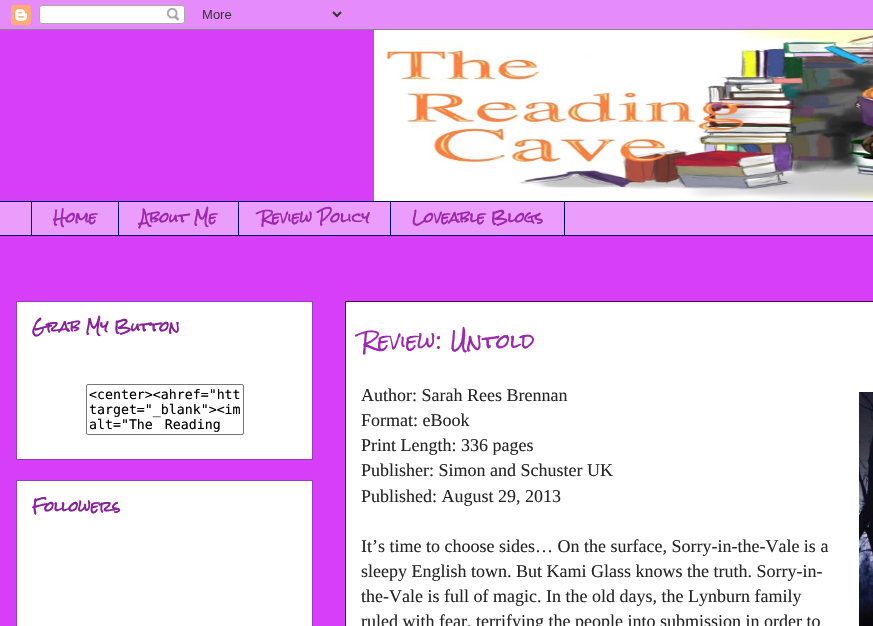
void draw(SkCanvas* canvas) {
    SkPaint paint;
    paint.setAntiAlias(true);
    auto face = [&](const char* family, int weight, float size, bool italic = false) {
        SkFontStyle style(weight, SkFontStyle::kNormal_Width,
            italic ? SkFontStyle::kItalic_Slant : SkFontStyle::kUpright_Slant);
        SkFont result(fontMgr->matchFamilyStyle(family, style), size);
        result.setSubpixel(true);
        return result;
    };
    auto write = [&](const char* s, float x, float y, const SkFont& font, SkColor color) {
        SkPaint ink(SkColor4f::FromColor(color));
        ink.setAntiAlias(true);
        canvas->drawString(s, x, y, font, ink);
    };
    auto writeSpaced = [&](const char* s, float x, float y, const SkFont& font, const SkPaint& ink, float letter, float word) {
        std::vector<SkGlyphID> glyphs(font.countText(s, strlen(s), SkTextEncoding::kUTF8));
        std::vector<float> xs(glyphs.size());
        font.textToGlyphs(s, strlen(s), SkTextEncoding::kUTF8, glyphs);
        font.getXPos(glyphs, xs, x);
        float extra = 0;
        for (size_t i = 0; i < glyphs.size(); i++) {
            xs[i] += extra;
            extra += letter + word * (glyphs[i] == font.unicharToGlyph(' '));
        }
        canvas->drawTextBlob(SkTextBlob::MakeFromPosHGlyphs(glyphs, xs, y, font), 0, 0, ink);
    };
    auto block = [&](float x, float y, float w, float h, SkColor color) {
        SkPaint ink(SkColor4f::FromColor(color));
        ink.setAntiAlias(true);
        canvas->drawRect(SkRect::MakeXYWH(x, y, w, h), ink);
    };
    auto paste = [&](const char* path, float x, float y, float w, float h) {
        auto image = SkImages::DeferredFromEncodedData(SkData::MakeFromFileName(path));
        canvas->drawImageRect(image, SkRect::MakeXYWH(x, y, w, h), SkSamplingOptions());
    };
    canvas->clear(SkColorSetRGB(214, 62, 247));
    paste("pic1.png", 0, 0, 873, 30);
    paste("pic2.png", 374, 30, 499, 171);
    block(0, 202, 873, 33, SkColorSetRGB(234, 157, 251));
    block(0, 201, 873, 1, SkColorSetRGB(0, 6, 95));
    block(31, 201, 1, 35, SkColorSetRGB(0, 6, 95));
    auto kFont1 = face("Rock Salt", 700, 14);
    write("Home", 53, 223, kFont1, SkColorSetRGB(156, 39, 176));
    block(118, 201, 1, 35, SkColorSetRGB(0, 6, 95));
    write("About Me", 140, 223, kFont1, SkColorSetRGB(156, 39, 176));
    block(238, 201, 1, 35, SkColorSetRGB(0, 6, 95));
    write("Review Policy", 260, 223, kFont1, SkColorSetRGB(156, 39, 176));
    paint.setStyle(SkPaint::kStroke_Style);
    paint.setStrokeWidth(1);
    paint.setColor(SkColorSetRGB(0, 6, 95));
    canvas->drawRect(SkRect::MakeXYWH(390.5f, 201.5f, 174, 34), paint);
    write("Loveable Blogs", 412, 223, kFont1, SkColorSetRGB(156, 39, 176));
    block(0, 235, 873, 1, SkColorSetRGB(0, 6, 95));
    paint.setStyle(SkPaint::kFill_Style);
    paint.setColor(SK_ColorWHITE);
    canvas->drawRect(SkRect::MakeXYWH(16.5f, 301.5f, 296, 158), paint);
    paint.setStyle(SkPaint::kStroke_Style);
    paint.setColor(SkColorSetRGB(154, 60, 183));
    canvas->drawRect(SkRect::MakeXYWH(16.5f, 301.5f, 296, 158), paint);
    write("Grab My Button", 32, 332, kFont1, SkColorSetRGB(138, 31, 156));
    paint.setColor(SkColorSetRGB(118, 118, 118));
    canvas->drawRoundRect(SkRect::MakeXYWH(86.5f, 384.5f, 157, 50), 1.5f, 1.5f, paint);
    auto kFont2 = face("DejaVu Sans Mono", 400, 13.25f);
    write("<center><ahref=\"htt", 89, 399, kFont2, SK_ColorBLACK);
    write("target=\"_blank\"><im", 89, 414, kFont2, SK_ColorBLACK);
    paint.setStyle(SkPaint::kFill_Style);
    paint.setColor(SK_ColorBLACK);
    writeSpaced("alt=\"The Reading", 89, 429, kFont2, paint, 0, 4);
    paint.setColor(SK_ColorWHITE);
    canvas->drawRect(SkRect::MakeXYWH(16.5f, 480.5f, 296, 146), paint);
    paint.setStyle(SkPaint::kStroke_Style);
    paint.setColor(SkColorSetRGB(154, 60, 183));
    canvas->drawRect(SkRect::MakeXYWH(16.5f, 480.5f, 296, 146), paint);
    write("Followers", 32, 512, kFont1, SkColorSetRGB(138, 31, 156));
    paint.setStyle(SkPaint::kFill_Style);
    paint.setColor(SK_ColorWHITE);
    canvas->drawRect(SkRect::MakeXYWH(345.5f, 301.5f, 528, 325), paint);
    paint.setStyle(SkPaint::kStroke_Style);
    paint.setColor(SkColorSetRGB(89, 0, 95));
    canvas->drawRect(SkRect::MakeXYWH(345.5f, 301.5f, 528, 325), paint);
    auto kFont3 = face("Rock Salt", 400, 20);
    write("Review: Untold", 361, 349, kFont3, SkColorSetRGB(156, 39, 176));
    auto kFont4 = face("Liberation Serif", 400, 18);
    write("Author: Sarah Rees Brennan", 361, 401, kFont4, SkColorSetRGB(37, 37, 37));
    paste("pic3.png", 859, 392, 14, 234);
    write("Format: eBook", 361, 426, kFont4, SkColorSetRGB(37, 37, 37));
    write("Print Length: 336 pages", 361, 451, kFont4, SkColorSetRGB(37, 37, 37));
    write("Publisher: Simon and Schuster UK", 361, 476, kFont4, SkColorSetRGB(37, 37, 37));
    write("Published: August 29, 2013", 361, 502, kFont4, SkColorSetRGB(37, 37, 37));
    write("It’s time to choose sides… On the surface, Sorry-in-the-Vale is a", 361, 552, kFont4, SkColorSetRGB(37, 37, 37));
    write("sleepy English town. But Kami Glass knows the truth. Sorry-in-", 361, 577, kFont4, SkColorSetRGB(37, 37, 37));
    write("the-Vale is full of magic. In the old days, the Lynburn family", 361, 602, kFont4, SkColorSetRGB(37, 37, 37));
    write("ruled with fear, terrifying the people into submission in order to", 361, 627, kFont4, SkColorSetRGB(37, 37, 37));
}
